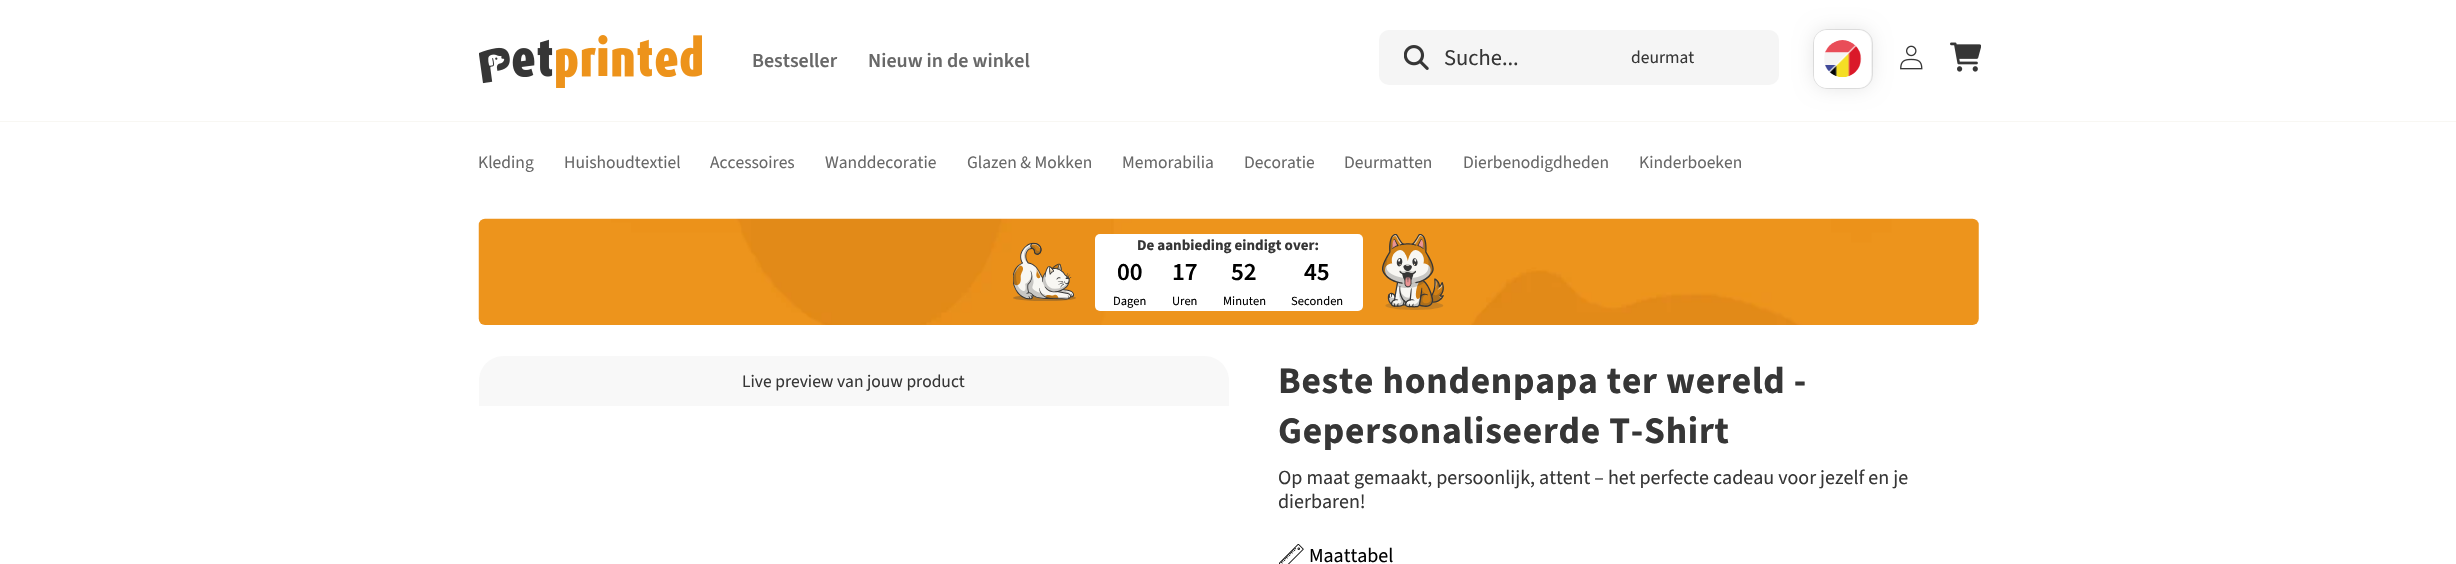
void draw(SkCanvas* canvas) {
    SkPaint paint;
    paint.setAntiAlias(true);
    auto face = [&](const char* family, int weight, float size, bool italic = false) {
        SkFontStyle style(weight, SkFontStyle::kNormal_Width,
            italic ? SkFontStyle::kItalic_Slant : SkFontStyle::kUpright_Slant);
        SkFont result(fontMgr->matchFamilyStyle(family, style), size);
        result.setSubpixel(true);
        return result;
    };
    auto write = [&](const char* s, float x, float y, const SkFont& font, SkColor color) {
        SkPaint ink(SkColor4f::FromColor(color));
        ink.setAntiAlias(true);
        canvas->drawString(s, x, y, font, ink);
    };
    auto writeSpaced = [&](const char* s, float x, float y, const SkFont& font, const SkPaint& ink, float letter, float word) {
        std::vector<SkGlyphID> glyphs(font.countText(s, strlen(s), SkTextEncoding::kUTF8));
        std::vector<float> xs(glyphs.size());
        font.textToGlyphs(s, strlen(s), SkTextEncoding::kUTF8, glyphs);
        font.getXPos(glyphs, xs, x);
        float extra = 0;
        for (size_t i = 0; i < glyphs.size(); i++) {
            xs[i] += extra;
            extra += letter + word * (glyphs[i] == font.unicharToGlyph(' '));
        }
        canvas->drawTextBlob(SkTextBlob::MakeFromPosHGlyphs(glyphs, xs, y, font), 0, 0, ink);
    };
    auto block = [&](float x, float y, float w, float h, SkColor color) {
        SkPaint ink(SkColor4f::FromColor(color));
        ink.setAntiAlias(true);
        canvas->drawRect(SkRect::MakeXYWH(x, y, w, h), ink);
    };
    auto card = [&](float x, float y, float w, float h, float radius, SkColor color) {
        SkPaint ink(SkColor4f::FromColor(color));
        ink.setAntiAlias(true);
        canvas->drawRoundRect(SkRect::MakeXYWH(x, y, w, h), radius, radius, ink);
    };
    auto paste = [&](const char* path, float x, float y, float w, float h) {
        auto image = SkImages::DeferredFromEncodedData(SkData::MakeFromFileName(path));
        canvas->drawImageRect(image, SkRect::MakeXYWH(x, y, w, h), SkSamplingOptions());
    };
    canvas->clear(SK_ColorWHITE);
    paste("pic1.png", 479, 35, 223, 53);
    auto kFont1 = face("Source Sans Pro", 600, 20);
    write("Bestseller", 752, 67, kFont1, SkColorSetRGB(104, 104, 104));
    write("Nieuw in de winkel", 868, 67, kFont1, SkColorSetRGB(104, 104, 104));
    card(1379, 30, 400, 55, 10, SkColorSetRGB(245, 245, 245));
    paste("pic2.png", 1404, 45, 25, 25);
    auto kFont2 = face("Source Sans Pro", 400, 22.5f);
    write("Suche...", 1444, 65, kFont2, SkColorSetRGB(54, 54, 54));
    auto kFont3 = face("Source Sans Pro", 400, 17.5f);
    write("deurmat", 1631, 63, kFont3, SkColorSetRGB(54, 54, 54));
    paint.setStyle(SkPaint::kStroke_Style);
    paint.setStrokeWidth(1);
    paint.setColor(SkColorSetRGB(230, 230, 230));
    canvas->drawRoundRect(SkRect::MakeXYWH(1813.5f, 29.5f, 59, 59), 13.5f, 13.5f, paint);
    paste("pic4.png", 1900, 45, 23, 25);
    paint.setStyle(SkPaint::kFill_Style);
    paint.setColor(SkColorSetARGB(26, 0, 0, 0));
    paint.setMaskFilter(SkMaskFilter::MakeBlur(kNormal_SkBlurStyle, 9.5f));
    canvas->drawRoundRect(SkRect::MakeXYWH(1814, 30, 57, 58), 13, 13, paint);
    paint.setMaskFilter(nullptr);
    card(1814, 30, 57, 58, 13, SK_ColorWHITE);
    paste("pic3.png", 1824, 40, 38, 38);
    paste("pic5.png", 1950, 42, 31, 30);
    block(0, 121, 2456, 1, SkColorSetRGB(248, 247, 243));
    write("Kleding", 478, 168, kFont3, SkColorSetRGB(104, 104, 104));
    write("Huishoudtextiel", 564, 168, kFont3, SkColorSetRGB(104, 104, 104));
    write("Accessoires", 710, 168, kFont3, SkColorSetRGB(104, 104, 104));
    write("Wanddecoratie", 825, 168, kFont3, SkColorSetRGB(104, 104, 104));
    write("Glazen & Mokken", 967, 168, kFont3, SkColorSetRGB(104, 104, 104));
    write("Memorabilia", 1122, 168, kFont3, SkColorSetRGB(104, 104, 104));
    write("Decoratie", 1244, 168, kFont3, SkColorSetRGB(104, 104, 104));
    write("Deurmatten", 1344, 168, kFont3, SkColorSetRGB(104, 104, 104));
    write("Dierbenodigdheden", 1463, 168, kFont3, SkColorSetRGB(104, 104, 104));
    write("Kinderboeken", 1639, 168, kFont3, SkColorSetRGB(104, 104, 104));
    paste("pic6.png", 478, 218, 1501, 107);
    paste("pic7.png", 1013, 242, 63, 59);
    card(1095, 234, 268, 77, 5, SK_ColorWHITE);
    auto kFont4 = face("Source Sans Pro", 700, 15);
    write("De aanbieding eindigt over:", 1137, 250, kFont4, SkColorSetRGB(54, 54, 54));
    auto kFont5 = face("Source Sans Pro", 600, 25);
    write("00", 1117, 280, kFont5, SK_ColorBLACK);
    auto kFont6 = face("Source Sans Pro", 400, 12.5f);
    write("Dagen", 1113, 305, kFont6, SK_ColorBLACK);
    write("17", 1172, 280, kFont5, SK_ColorBLACK);
    write("Uren", 1172, 305, kFont6, SK_ColorBLACK);
    write("52", 1231, 280, kFont5, SK_ColorBLACK);
    write("Minuten", 1223, 305, kFont6, SK_ColorBLACK);
    write("45", 1304, 280, kFont5, SK_ColorBLACK);
    write("Seconden", 1291, 305, kFont6, SK_ColorBLACK);
    paste("pic8.png", 1382, 234, 62, 76);
    paint.setColor(SkColorSetRGB(248, 248, 248));
    canvas->drawPath(SkPathBuilder().moveTo(504, 356).lineTo(1204, 356).cubicTo(1218, 356, 1229, 367, 1229, 381).lineTo(1229, 406).lineTo(479, 406).lineTo(479, 381).cubicTo(479, 367, 490, 356, 504, 356).close().detach(), paint);
    write("Live preview van jouw product", 742, 387, kFont3, SkColorSetRGB(54, 54, 54));
    auto kFont7 = face("Source Sans Pro", 700, 37.5f);
    paint.setColor(SkColorSetRGB(54, 54, 54));
    writeSpaced("Beste hondenpapa ter wereld -", 1278, 393, kFont7, paint, 0.75f, 0);
    writeSpaced("Gepersonaliseerde T-Shirt", 1278, 443, kFont7, paint, 0.75f, 0);
    auto kFont8 = face("Source Sans Pro", 400, 20);
    write("Op maat gemaakt, persoonlijk, attent – het perfecte cadeau voor jezelf en je", 1278, 484, kFont8, SkColorSetRGB(54, 54, 54));
    write("dierbaren!", 1278, 508, kFont8, SkColorSetRGB(54, 54, 54));
    paste("pic9.png", 1279, 544, 25, 20);
    write("Maattabel", 1309, 562, kFont8, SK_ColorBLACK);
}
